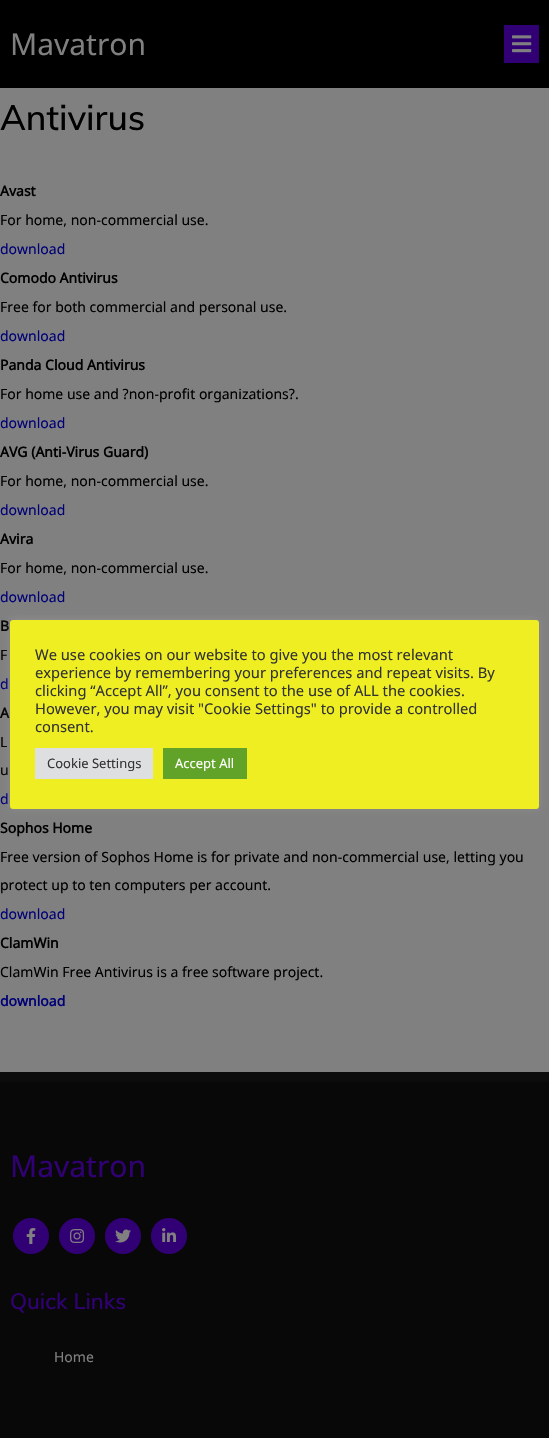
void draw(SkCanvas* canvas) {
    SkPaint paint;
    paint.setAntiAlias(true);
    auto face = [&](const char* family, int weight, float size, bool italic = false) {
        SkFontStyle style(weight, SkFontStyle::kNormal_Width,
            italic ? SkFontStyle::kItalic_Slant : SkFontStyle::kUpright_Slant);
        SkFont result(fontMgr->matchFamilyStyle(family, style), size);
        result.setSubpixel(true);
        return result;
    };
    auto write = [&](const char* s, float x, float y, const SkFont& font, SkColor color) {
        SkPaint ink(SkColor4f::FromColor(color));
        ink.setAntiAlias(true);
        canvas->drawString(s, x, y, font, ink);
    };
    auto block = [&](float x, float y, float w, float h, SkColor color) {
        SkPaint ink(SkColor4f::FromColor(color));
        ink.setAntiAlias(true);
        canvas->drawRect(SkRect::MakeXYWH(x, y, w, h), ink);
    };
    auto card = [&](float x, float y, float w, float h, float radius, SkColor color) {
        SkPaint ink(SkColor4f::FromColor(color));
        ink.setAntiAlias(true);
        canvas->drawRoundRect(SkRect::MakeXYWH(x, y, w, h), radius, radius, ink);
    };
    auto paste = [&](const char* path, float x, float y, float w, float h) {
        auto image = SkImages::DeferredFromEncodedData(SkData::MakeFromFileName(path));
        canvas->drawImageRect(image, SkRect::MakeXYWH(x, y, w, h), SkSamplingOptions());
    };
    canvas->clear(SkColorSetRGB(128, 128, 128));
    block(0, 0, 549, 88, SK_ColorBLACK);
    auto kFont1 = face("Noto Sans", 400, 30);
    write("Mavatron", 10, 55, kFont1, SkColorSetRGB(128, 128, 128));
    block(504, 25, 35, 38, SkColorSetRGB(49, 0, 117));
    paste("pic1.png", 512, 35, 20, 18);
    auto kFont2 = face("Muli", 500, 35);
    write("Antivirus", 0, 130, kFont2, SK_ColorBLACK);
    auto kFont3 = face("Noto Sans", 700, 14);
    write("Avast", 0, 196, kFont3, SK_ColorBLACK);
    auto kFont4 = face("Noto Sans", 400, 14);
    write("For home, non-commercial use.", 0, 225, kFont4, SK_ColorBLACK);
    write("download", 0, 254, kFont4, SkColorSetRGB(0, 0, 119));
    write("Comodo Antivirus", 0, 283, kFont3, SK_ColorBLACK);
    write("Free for both commercial and personal use.", 0, 312, kFont4, SK_ColorBLACK);
    write("download", 0, 341, kFont4, SkColorSetRGB(0, 0, 119));
    write("Panda Cloud Antivirus", 0, 370, kFont3, SK_ColorBLACK);
    write("For home use and ?non-profit organizations?.", 0, 399, kFont4, SK_ColorBLACK);
    write("download", 0, 428, kFont4, SkColorSetRGB(0, 0, 119));
    write("AVG (Anti-Virus Guard)", 0, 457, kFont3, SK_ColorBLACK);
    write("For home, non-commercial use.", 0, 486, kFont4, SK_ColorBLACK);
    write("download", 0, 515, kFont4, SkColorSetRGB(0, 0, 119));
    write("Avira", 0, 544, kFont3, SK_ColorBLACK);
    write("For home, non-commercial use.", 0, 573, kFont4, SK_ColorBLACK);
    write("download", 0, 602, kFont4, SkColorSetRGB(0, 0, 119));
    write("B", 0, 631, kFont3, SK_ColorBLACK);
    write("F", 0, 660, kFont4, SK_ColorBLACK);
    write("d", 0, 689, kFont4, SkColorSetRGB(0, 0, 119));
    write("A", 0, 718, kFont3, SK_ColorBLACK);
    write("L", 0, 747, kFont4, SK_ColorBLACK);
    write("u", 0, 775, kFont4, SK_ColorBLACK);
    write("d", 0, 804, kFont4, SkColorSetRGB(0, 0, 119));
    write("Sophos Home", 0, 833, kFont3, SK_ColorBLACK);
    write("Free version of Sophos Home is for private and non-commercial use, letting you", 0, 862, kFont4, SK_ColorBLACK);
    write("protect up to ten computers per account.", 0, 890, kFont4, SK_ColorBLACK);
    write("download", 0, 919, kFont4, SkColorSetRGB(0, 0, 119));
    write("ClamWin", 0, 948, kFont3, SK_ColorBLACK);
    write("ClamWin Free Antivirus is a free software project.", 0, 977, kFont4, SK_ColorBLACK);
    write("download", 0, 1006, kFont3, SkColorSetRGB(0, 0, 119));
    paint.setColor(SkColorSetARGB(77, 172, 171, 171));
    paint.setMaskFilter(SkMaskFilter::MakeBlur(kNormal_SkBlurStyle, 5));
    canvas->drawRoundRect(SkRect::MakeXYWH(10, 619, 529, 189), 3, 3, paint);
    paint.setMaskFilter(nullptr);
    card(10, 620, 529, 189, 3, SkColorSetRGB(238, 238, 34));
    auto kFont5 = face("Noto Sans", 400, 14.7f);
    write("We use cookies on our website to give you the most relevant", 35, 660, kFont5, SkColorSetRGB(51, 51, 51));
    write("experience by remembering your preferences and repeat visits. By", 35, 678, kFont5, SkColorSetRGB(51, 51, 51));
    write("clicking “Accept All”, you consent to the use of ALL the cookies.", 35, 696, kFont5, SkColorSetRGB(51, 51, 51));
    write("However, you may visit \"Cookie Settings\" to provide a controlled", 35, 714, kFont5, SkColorSetRGB(51, 51, 51));
    write("consent.", 35, 732, kFont5, SkColorSetRGB(51, 51, 51));
    block(35, 748, 118, 31, SkColorSetRGB(222, 223, 224));
    auto kFont6 = face("Noto Sans", 400, 13);
    write("Cookie Settings", 47, 768, kFont6, SkColorSetRGB(51, 51, 51));
    block(163, 748, 84, 31, SkColorSetRGB(97, 162, 41));
    write("Accept All", 175, 768, kFont6, SK_ColorWHITE);
    block(0, 1072, 549, 10, SkColorSetRGB(12, 12, 12));
    block(0, 1082, 549, 356, SkColorSetRGB(8, 8, 8));
    write("Mavatron", 10, 1177, kFont1, SkColorSetRGB(49, 0, 117));
    paint.setColor(SkColorSetRGB(49, 0, 117));
    canvas->drawCircle(31, 1236, 18, paint);
    paste("pic2.png", 26, 1228, 10, 16);
    canvas->drawCircle(77, 1236, 18, paint);
    paste("pic3.png", 70, 1229, 15, 14);
    canvas->drawCircle(123, 1236, 18, paint);
    paste("pic4.png", 115, 1229, 16, 14);
    canvas->drawCircle(169, 1236, 18, paint);
    paste("pic5.png", 162, 1228, 15, 14);
    auto kFont7 = face("Muli", 500, 22);
    write("Quick Links", 10, 1309, kFont7, SkColorSetRGB(49, 0, 117));
    write("Home", 54, 1362, kFont4, SkColorSetRGB(128, 128, 128));
}
